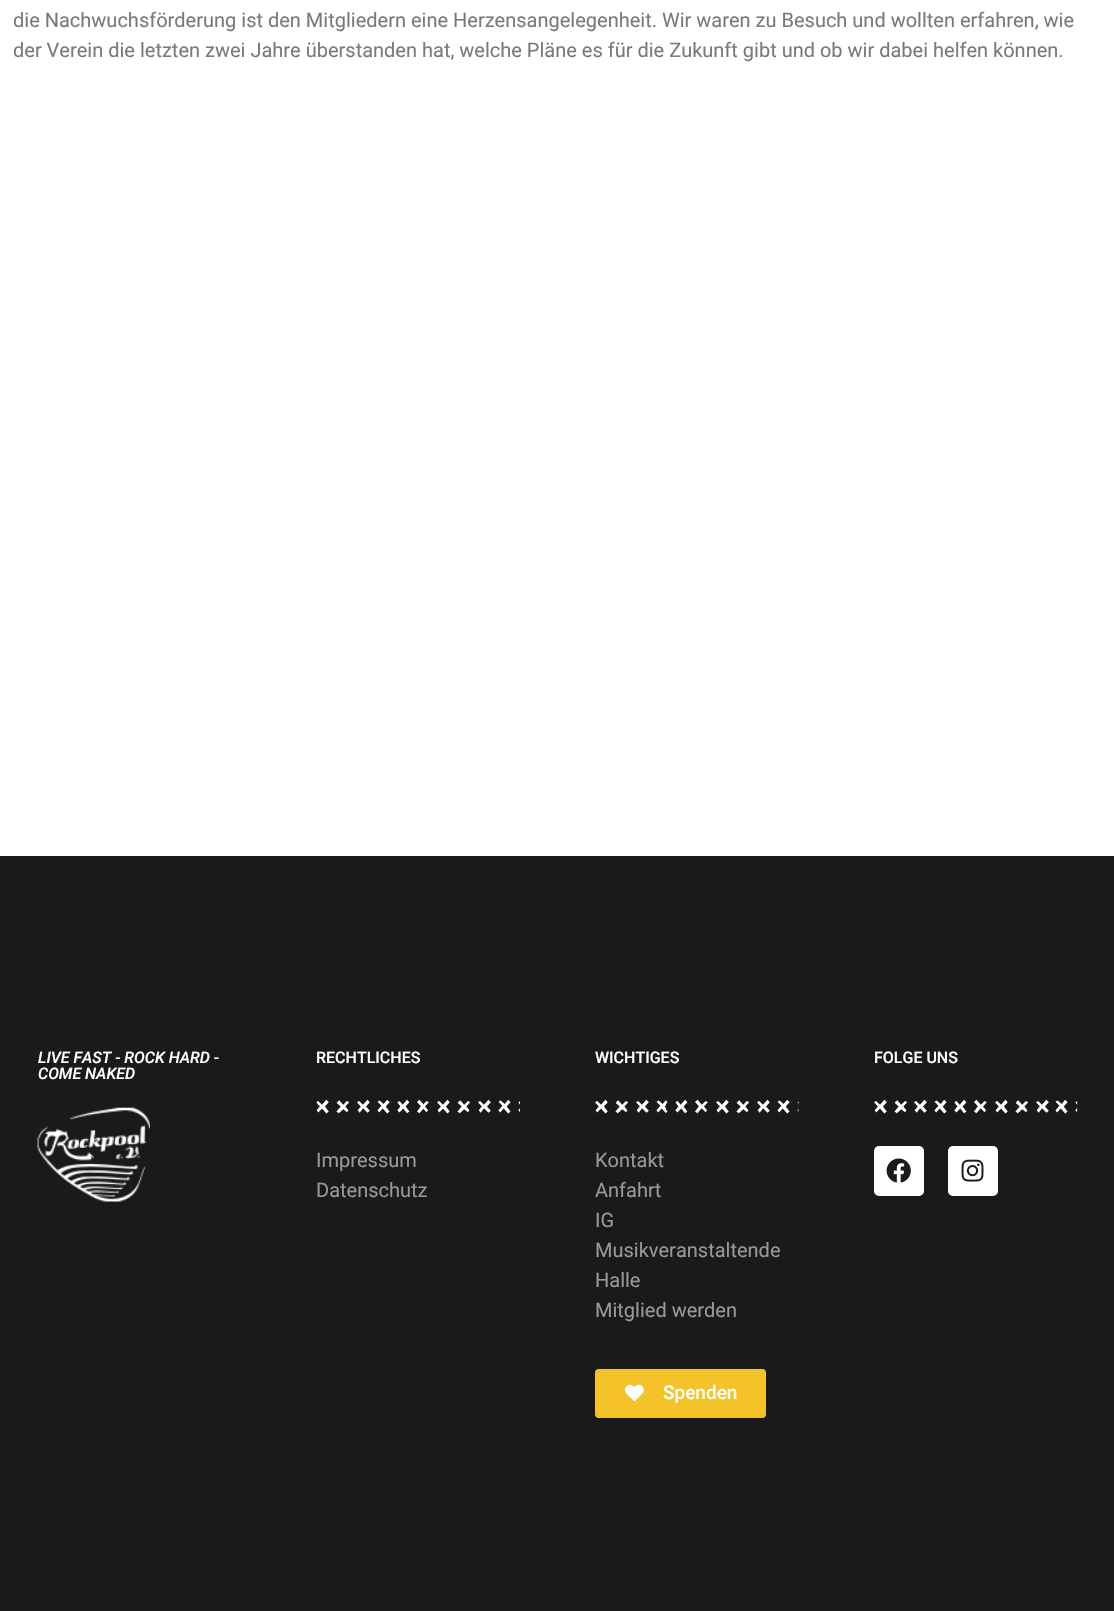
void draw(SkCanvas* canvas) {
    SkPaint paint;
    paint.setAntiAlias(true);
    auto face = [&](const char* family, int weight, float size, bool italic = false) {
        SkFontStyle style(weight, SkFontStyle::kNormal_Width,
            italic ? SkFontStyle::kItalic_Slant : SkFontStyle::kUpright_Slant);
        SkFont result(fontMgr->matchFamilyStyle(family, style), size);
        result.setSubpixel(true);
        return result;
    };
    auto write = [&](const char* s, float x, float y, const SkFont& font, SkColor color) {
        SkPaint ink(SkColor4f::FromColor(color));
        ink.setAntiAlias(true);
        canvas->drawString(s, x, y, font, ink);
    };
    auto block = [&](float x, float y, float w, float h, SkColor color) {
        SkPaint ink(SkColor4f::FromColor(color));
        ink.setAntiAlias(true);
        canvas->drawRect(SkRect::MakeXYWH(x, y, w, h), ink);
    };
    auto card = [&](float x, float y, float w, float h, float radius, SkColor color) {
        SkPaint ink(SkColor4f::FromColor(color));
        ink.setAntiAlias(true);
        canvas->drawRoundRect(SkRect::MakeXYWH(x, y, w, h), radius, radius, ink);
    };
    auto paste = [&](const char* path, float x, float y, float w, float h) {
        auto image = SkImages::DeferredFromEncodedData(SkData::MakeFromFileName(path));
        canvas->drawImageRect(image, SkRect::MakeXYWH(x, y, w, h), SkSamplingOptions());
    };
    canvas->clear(SK_ColorWHITE);
    auto kFont1 = face("Roboto", 400, 20);
    write("die Nachwuchsförderung ist den Mitgliedern eine Herzensangelegenheit. Wir waren zu Besuch und wollten erfahren, wie", 13, 27, kFont1, SkColorSetRGB(122, 122, 122));
    write("der Verein die letzten zwei Jahre überstanden hat, welche Pläne es für die Zukunft gibt und ob wir dabei helfen können.", 13, 57, kFont1, SkColorSetRGB(122, 122, 122));
    block(0, 856, 1114, 755, SkColorSetRGB(26, 26, 26));
    auto kFont2 = face("Roboto", 500, 16, true);
    write("LIVE FAST - ROCK HARD -", 38, 1063, kFont2, SK_ColorWHITE);
    write("COME NAKED", 38, 1079, kFont2, SK_ColorWHITE);
    paste("pic1.png", 37, 1107, 113, 95);
    auto kFont3 = face("Roboto", 500, 16);
    write("RECHTLICHES", 316, 1063, kFont3, SK_ColorWHITE);
    paste("pic2.png", 316, 1099, 204, 15);
    write("Impressum", 316, 1167, kFont1, SkColorSetRGB(153, 153, 153));
    write("Datenschutz", 316, 1197, kFont1, SkColorSetRGB(153, 153, 153));
    write("WICHTIGES", 595, 1063, kFont3, SK_ColorWHITE);
    paste("pic3.png", 595, 1099, 204, 15);
    write("Kontakt", 595, 1167, kFont1, SkColorSetRGB(153, 153, 153));
    write("Anfahrt", 595, 1197, kFont1, SkColorSetRGB(153, 153, 153));
    write("IG", 595, 1227, kFont1, SkColorSetRGB(153, 153, 153));
    write("Musikveranstaltende", 595, 1257, kFont1, SkColorSetRGB(153, 153, 153));
    write("Halle", 595, 1287, kFont1, SkColorSetRGB(153, 153, 153));
    write("Mitglied werden", 595, 1317, kFont1, SkColorSetRGB(153, 153, 153));
    card(595, 1369, 171, 49, 4, SkColorSetRGB(244, 195, 41));
    paste("pic4.png", 625, 1384, 19, 18);
    auto kFont4 = face("Roboto", 500, 19);
    write("Spenden", 663, 1399, kFont4, SK_ColorWHITE);
    write("FOLGE UNS", 874, 1063, kFont3, SK_ColorWHITE);
    paste("pic5.png", 874, 1099, 204, 15);
    card(874, 1146, 50, 50, 5, SK_ColorWHITE);
    paste("pic6.png", 886, 1158, 25, 25);
    card(948, 1146, 50, 50, 5, SK_ColorWHITE);
    paste("pic7.png", 961, 1159, 23, 23);
}
